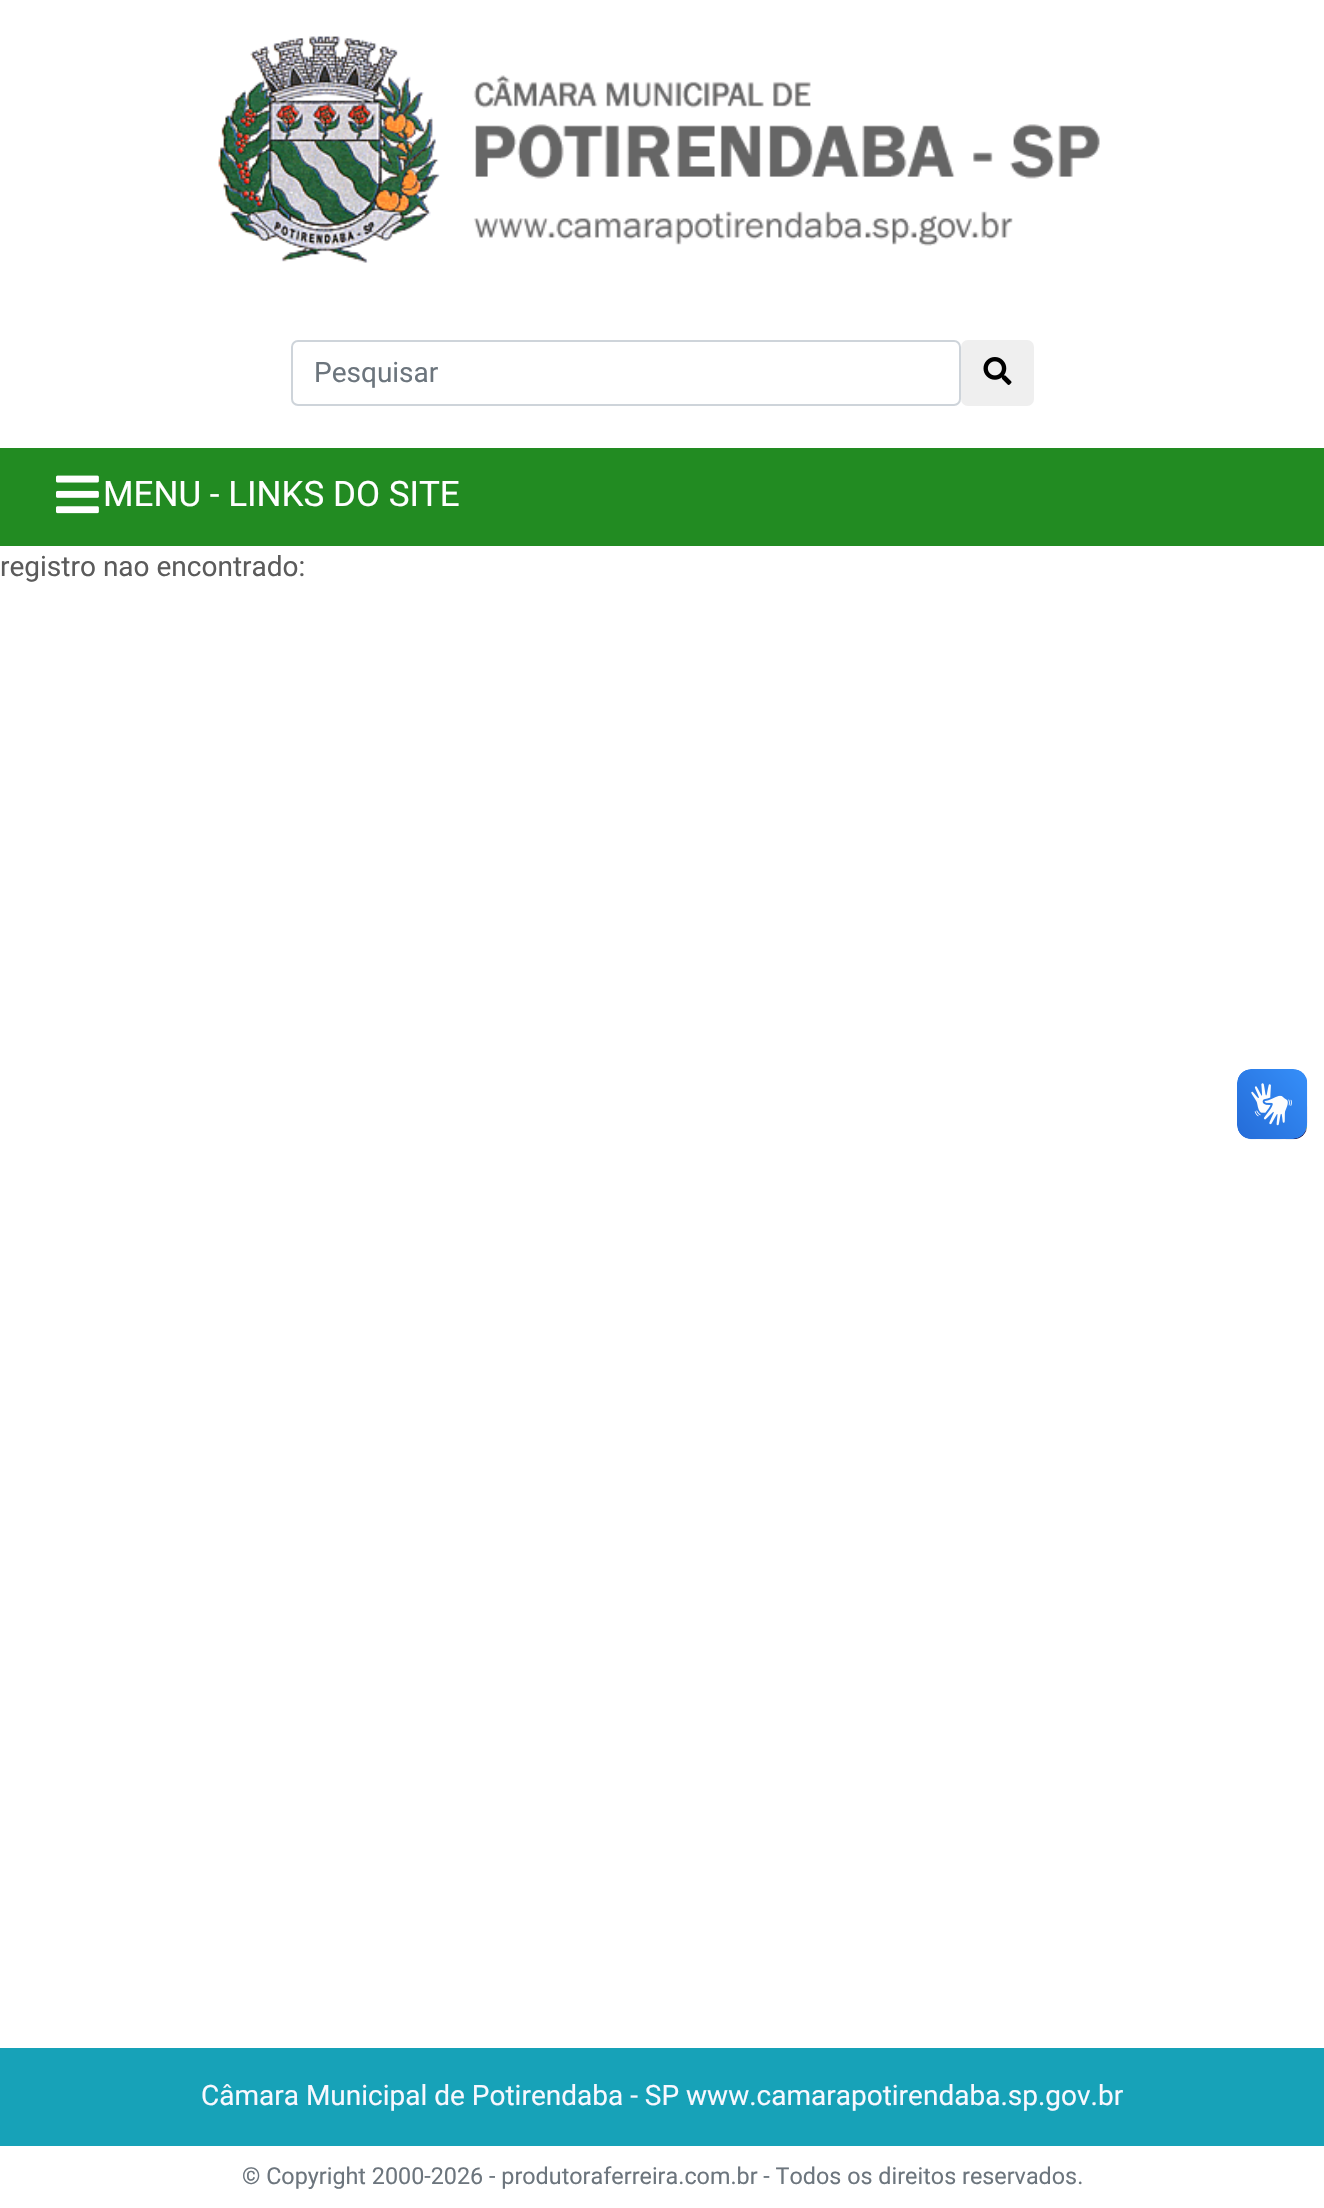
void draw(SkCanvas* canvas) {
    SkPaint paint;
    paint.setAntiAlias(true);
    auto face = [&](const char* family, int weight, float size, bool italic = false) {
        SkFontStyle style(weight, SkFontStyle::kNormal_Width,
            italic ? SkFontStyle::kItalic_Slant : SkFontStyle::kUpright_Slant);
        SkFont result(fontMgr->matchFamilyStyle(family, style), size);
        result.setSubpixel(true);
        return result;
    };
    auto write = [&](const char* s, float x, float y, const SkFont& font, SkColor color) {
        SkPaint ink(SkColor4f::FromColor(color));
        ink.setAntiAlias(true);
        canvas->drawString(s, x, y, font, ink);
    };
    auto block = [&](float x, float y, float w, float h, SkColor color) {
        SkPaint ink(SkColor4f::FromColor(color));
        ink.setAntiAlias(true);
        canvas->drawRect(SkRect::MakeXYWH(x, y, w, h), ink);
    };
    auto card = [&](float x, float y, float w, float h, float radius, SkColor color) {
        SkPaint ink(SkColor4f::FromColor(color));
        ink.setAntiAlias(true);
        canvas->drawRoundRect(SkRect::MakeXYWH(x, y, w, h), radius, radius, ink);
    };
    auto paste = [&](const char* path, float x, float y, float w, float h) {
        auto image = SkImages::DeferredFromEncodedData(SkData::MakeFromFileName(path));
        canvas->drawImageRect(image, SkRect::MakeXYWH(x, y, w, h), SkSamplingOptions());
    };
    canvas->clear(SK_ColorWHITE);
    paste("pic1.png", 218, 36, 882, 227);
    paint.setStyle(SkPaint::kStroke_Style);
    paint.setStrokeWidth(2);
    paint.setColor(SkColorSetRGB(206, 212, 218));
    canvas->drawRoundRect(SkRect::MakeXYWH(292, 341, 668, 64), 6, 6, paint);
    auto kFont1 = face("Roboto", 400, 28);
    write("Pesquisar", 314, 382, kFont1, SkColorSetRGB(108, 117, 125));
    card(961, 340, 73, 66, 7, SkColorSetRGB(239, 239, 239));
    paste("pic2.png", 983, 357, 29, 28);
    block(0, 448, 1324, 98, SkColorSetRGB(34, 139, 34));
    paste("pic3.png", 56, 475, 43, 39);
    auto kFont2 = face("Roboto", 400, 35);
    write("MENU - LINKS DO SITE", 103, 506, kFont2, SK_ColorWHITE);
    write("registro nao encontrado:", 0, 576, kFont1, SkColorSetRGB(91, 91, 91));
    block(0, 2048, 1324, 98, SkColorSetRGB(23, 162, 184));
    write("Câmara Municipal de Potirendaba - SP www.camarapotirendaba.sp.gov.br", 201, 2105, kFont1, SkColorSetRGB(248, 248, 255));
    auto kFont3 = face("Roboto", 400, 23.35f);
    write("© Copyright 2000-2026 - produtoraferreira.com.br - Todos os direitos reservados.", 242, 2184, kFont3, SkColorSetRGB(108, 117, 125));
    paste("pic4.png", 1237, 1069, 71, 71);
    paste("pic5.png", 1237, 1069, 70, 70);
}
